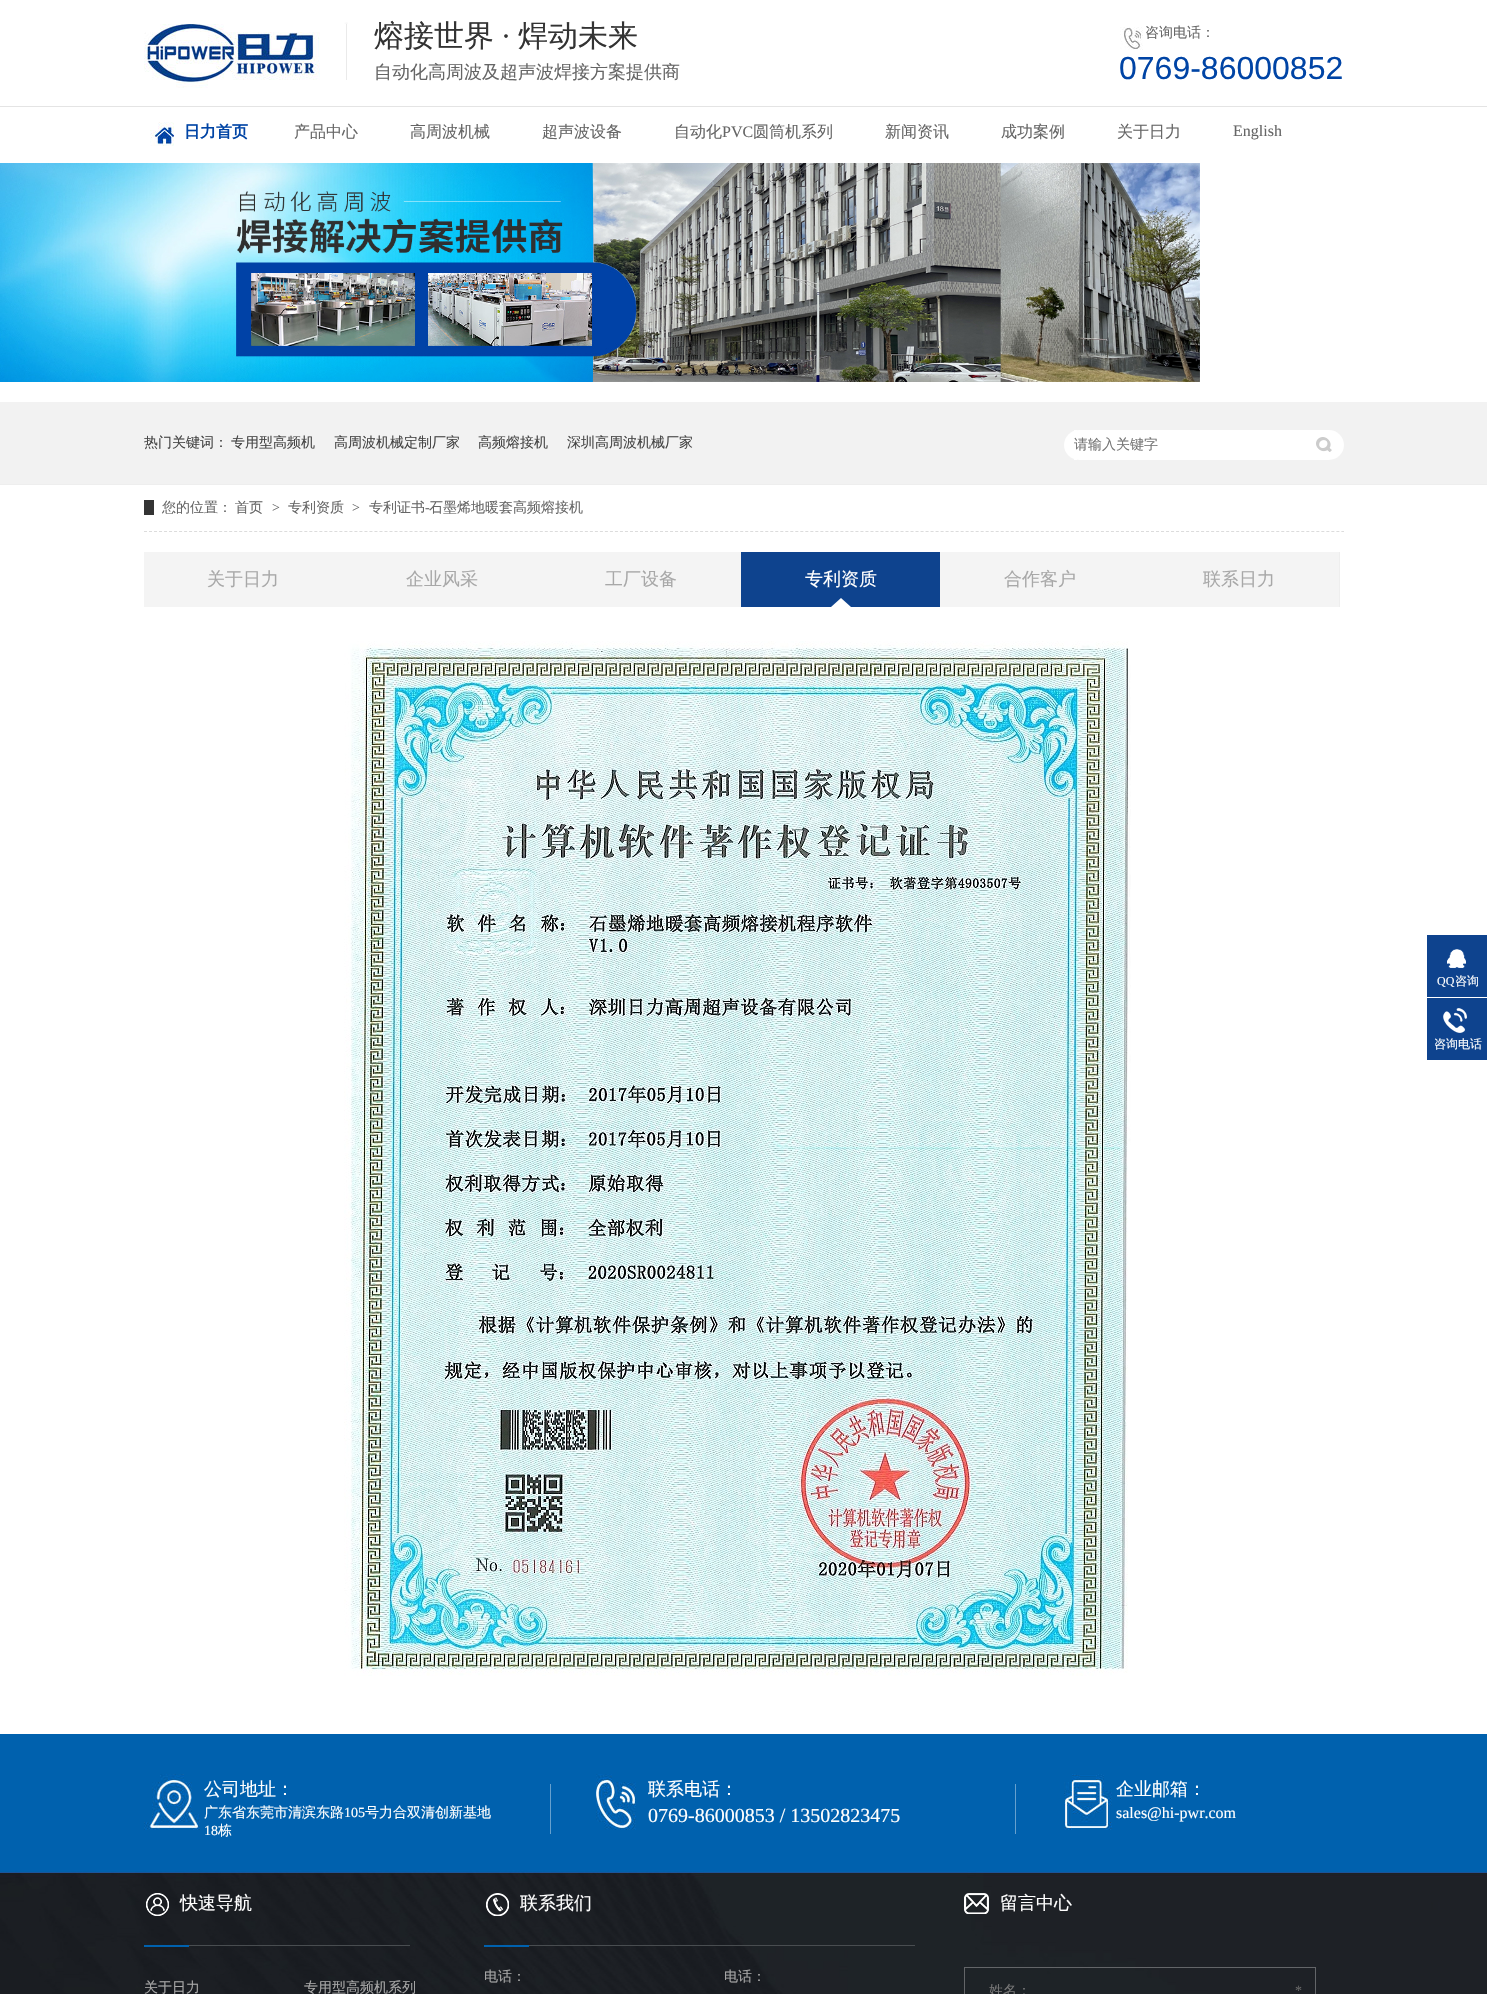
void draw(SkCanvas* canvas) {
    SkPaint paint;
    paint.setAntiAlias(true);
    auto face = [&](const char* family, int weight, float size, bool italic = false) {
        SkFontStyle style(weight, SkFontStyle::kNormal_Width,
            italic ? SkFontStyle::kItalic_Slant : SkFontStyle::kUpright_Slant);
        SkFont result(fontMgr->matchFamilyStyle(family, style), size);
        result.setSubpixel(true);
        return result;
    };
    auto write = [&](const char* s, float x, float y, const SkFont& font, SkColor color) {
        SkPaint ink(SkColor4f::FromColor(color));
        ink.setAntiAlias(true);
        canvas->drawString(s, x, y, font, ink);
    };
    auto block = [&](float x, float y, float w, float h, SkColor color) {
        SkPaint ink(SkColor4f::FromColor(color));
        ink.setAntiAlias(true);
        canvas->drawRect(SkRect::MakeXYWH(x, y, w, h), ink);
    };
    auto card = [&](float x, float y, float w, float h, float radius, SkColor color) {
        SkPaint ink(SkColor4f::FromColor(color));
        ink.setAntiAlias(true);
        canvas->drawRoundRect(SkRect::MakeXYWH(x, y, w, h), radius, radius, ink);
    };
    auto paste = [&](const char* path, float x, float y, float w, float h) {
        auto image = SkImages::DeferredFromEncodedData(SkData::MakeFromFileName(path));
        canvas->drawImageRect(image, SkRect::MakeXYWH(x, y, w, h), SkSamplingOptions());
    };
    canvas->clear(SK_ColorWHITE);
    block(0, 106, 1487, 1, SkColorSetRGB(228, 228, 228));
    paste("pic1.png", 144, 22, 204, 66);
    auto kFont1 = face("WenQuanYi Zen Hei", 500, 30);
    write("熔接世界", 374, 46, kFont1, SkColorSetRGB(51, 51, 51));
    auto kFont2 = face("Liberation Serif", 400, 30);
    write("·", 501, 46, kFont2, SkColorSetRGB(51, 51, 51));
    write("焊动未来", 518, 46, kFont1, SkColorSetRGB(51, 51, 51));
    auto kFont3 = face("WenQuanYi Zen Hei", 500, 18);
    write("自动化高周波及超声波焊接方案提供商", 374, 78, kFont3, SkColorSetRGB(102, 102, 102));
    paste("pic2.png", 1120, 27, 23, 23);
    auto kFont4 = face("WenQuanYi Zen Hei", 500, 14);
    write("咨询电话：", 1145, 37, kFont4, SkColorSetRGB(102, 102, 102));
    auto kFont5 = face("Liberation Sans", 400, 32);
    write("0769-86000852", 1119, 79, kFont5, SkColorSetRGB(0, 68, 165));
    paste("pic3.png", 150, 122, 24, 24);
    auto kFont6 = face("WenQuanYi Zen Hei", 700, 16);
    write("日力首页", 184, 137, kFont6, SkColorSetRGB(0, 68, 165));
    auto kFont7 = face("WenQuanYi Zen Hei", 500, 16);
    write("产品中心", 294, 137, kFont7, SkColorSetRGB(102, 102, 102));
    write("高周波机械", 410, 137, kFont7, SkColorSetRGB(102, 102, 102));
    write("超声波设备", 542, 137, kFont7, SkColorSetRGB(102, 102, 102));
    write("自动化", 674, 137, kFont7, SkColorSetRGB(102, 102, 102));
    auto kFont8 = face("Liberation Serif", 400, 16);
    write("PVC", 722, 137, kFont8, SkColorSetRGB(102, 102, 102));
    write("圆筒机系列", 753, 137, kFont7, SkColorSetRGB(102, 102, 102));
    write("新闻资讯", 885, 137, kFont7, SkColorSetRGB(102, 102, 102));
    write("成功案例", 1001, 137, kFont7, SkColorSetRGB(102, 102, 102));
    write("关于日力", 1117, 137, kFont7, SkColorSetRGB(102, 102, 102));
    write("English", 1233, 136, kFont8, SkColorSetRGB(102, 102, 102));
    paste("pic4.png", 0, 163, 1200, 219);
    block(0, 402, 1487, 82, SkColorSetRGB(242, 242, 242));
    block(0, 484, 1487, 1, SkColorSetRGB(238, 238, 238));
    write("热门关键词：", 144, 447, kFont4, SkColorSetRGB(68, 68, 68));
    write("专用型高频机", 231, 447, kFont4, SkColorSetRGB(68, 68, 68));
    write("高周波机械定制厂家", 334, 447, kFont4, SkColorSetRGB(68, 68, 68));
    write("高频熔接机", 478, 447, kFont4, SkColorSetRGB(68, 68, 68));
    write("深圳高周波机械厂家", 567, 447, kFont4, SkColorSetRGB(68, 68, 68));
    card(1064, 430, 280, 30, 15, SK_ColorWHITE);
    block(1074, 430, 3, 30, SK_ColorWHITE);
    write("请输入关键字", 1074, 449, kFont4, SkColorSetRGB(117, 117, 117));
    paste("pic5.png", 1316, 437, 16, 15);
    paint.setStyle(SkPaint::kStroke_Style);
    paint.setStrokeWidth(1);
    paint.setColor(SkColorSetRGB(220, 220, 220));
    paint.setPathEffect(SkDashPathEffect::Make({{3, 2.01f}}, 0));
    canvas->drawPath(SkPathBuilder().moveTo(144, 531.5f).lineTo(1344, 531.5f).detach(), paint);
    paint.setPathEffect(nullptr);
    write("您的位置：", 162, 512, kFont4, SkColorSetRGB(102, 102, 102));
    block(144, 500, 10, 15, SkColorSetRGB(52, 52, 52));
    write("首页", 235, 512, kFont4, SkColorSetRGB(102, 102, 102));
    auto kFont9 = face("Liberation Serif", 400, 14);
    write(">", 272, 512, kFont9, SkColorSetRGB(102, 102, 102));
    write("专利资质", 288, 512, kFont4, SkColorSetRGB(102, 102, 102));
    write(">", 352, 512, kFont9, SkColorSetRGB(102, 102, 102));
    write("专利证书", 369, 512, kFont4, SkColorSetRGB(102, 102, 102));
    write("-", 425, 512, kFont9, SkColorSetRGB(102, 102, 102));
    write("石墨烯地暖套高频熔接机", 429, 512, kFont4, SkColorSetRGB(102, 102, 102));
    block(144, 552, 597, 55, SkColorSetRGB(244, 244, 244));
    write("关于日力", 207, 585, kFont3, SkColorSetRGB(168, 168, 168));
    write("企业风采", 406, 585, kFont3, SkColorSetRGB(168, 168, 168));
    write("工厂设备", 605, 585, kFont3, SkColorSetRGB(168, 168, 168));
    block(741, 552, 199, 55, SkColorSetRGB(14, 67, 142));
    paste("pic6.png", 831, 598, 20, 9);
    write("专利资质", 805, 585, kFont3, SK_ColorWHITE);
    block(940, 552, 399, 55, SkColorSetRGB(244, 244, 244));
    write("合作客户", 1004, 585, kFont3, SkColorSetRGB(168, 168, 168));
    block(1339, 552, 1, 55, SkColorSetRGB(238, 238, 238));
    write("联系日力", 1203, 585, kFont3, SkColorSetRGB(168, 168, 168));
    paste("pic7.png", 344, 641, 787, 1035);
    block(1427, 935, 60, 62, SkColorSetRGB(14, 67, 142));
    paste("pic8.png", 1447, 949, 19, 19);
    auto kFont10 = face("Liberation Serif", 400, 12);
    write("QQ", 1437, 985, kFont10, SK_ColorWHITE);
    auto kFont11 = face("WenQuanYi Zen Hei", 500, 12);
    write("咨询", 1455, 985, kFont11, SK_ColorWHITE);
    block(1427, 998, 60, 62, SkColorSetRGB(14, 67, 142));
    paste("pic9.png", 1443, 1008, 24, 25);
    write("咨询电话", 1434, 1048, kFont11, SK_ColorWHITE);
    paste("pic10.png", 0, 1734, 1487, 260);
    paste("pic11.png", 144, 1774, 56, 56);
    write("公司地址：", 204, 1795, kFont3, SK_ColorWHITE);
    write("广东省东莞市清滨东路", 204, 1817, kFont4, SK_ColorWHITE);
    write("105", 344, 1817, kFont9, SK_ColorWHITE);
    write("号力合双清创新基地", 365, 1817, kFont4, SK_ColorWHITE);
    write("18", 204, 1835, kFont9, SK_ColorWHITE);
    write("栋", 218, 1835, kFont4, SK_ColorWHITE);
    block(550, 1784, 1, 50, SkColorSetRGB(102, 160, 206));
    paste("pic12.png", 596, 1774, 40, 56);
    write("联系电话：", 648, 1795, kFont3, SK_ColorWHITE);
    auto kFont12 = face("Liberation Serif", 400, 20);
    write("0769-86000853 / 13502823475", 648, 1822, kFont12, SK_ColorWHITE);
    block(1015, 1784, 1, 50, SkColorSetRGB(102, 160, 206));
    paste("pic13.png", 1064, 1774, 48, 56);
    write("企业邮箱：", 1116, 1795, kFont3, SK_ColorWHITE);
    write("sales@hi-pwr.com", 1116, 1818, kFont8, SK_ColorWHITE);
    block(189, 1945, 221, 1, SkColorSetRGB(73, 77, 80));
    paste("pic14.png", 146, 1893, 23, 23);
    write("快速导航", 180, 1909, kFont3, SK_ColorWHITE);
    block(144, 1945, 45, 2, SkColorSetRGB(0, 97, 174));
    write("关于日力", 144, 1992, kFont4, SkColorSetRGB(168, 168, 168));
    write("专用型高频机系列", 304, 1992, kFont4, SkColorSetRGB(168, 168, 168));
    block(529, 1945, 386, 1, SkColorSetRGB(73, 77, 80));
    paste("pic15.png", 486, 1893, 23, 23);
    write("联系我们", 520, 1909, kFont3, SK_ColorWHITE);
    block(484, 1945, 45, 2, SkColorSetRGB(0, 97, 174));
    write("电话：", 484, 1981, kFont4, SkColorSetRGB(168, 168, 168));
    write("电话：", 724, 1981, kFont4, SkColorSetRGB(168, 168, 168));
    paste("pic16.png", 964, 1893, 25, 21);
    write("留言中心", 1000, 1909, kFont3, SK_ColorWHITE);
    paint.setColor(SkColorSetRGB(99, 101, 104));
    canvas->drawRect(SkRect::MakeXYWH(964.5f, 1967.5f, 351, 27), paint);
    write("姓名：", 989, 1995, kFont4, SkColorSetRGB(117, 117, 117));
    write("*", 1295, 1995, kFont9, SkColorSetRGB(102, 102, 102));
}
